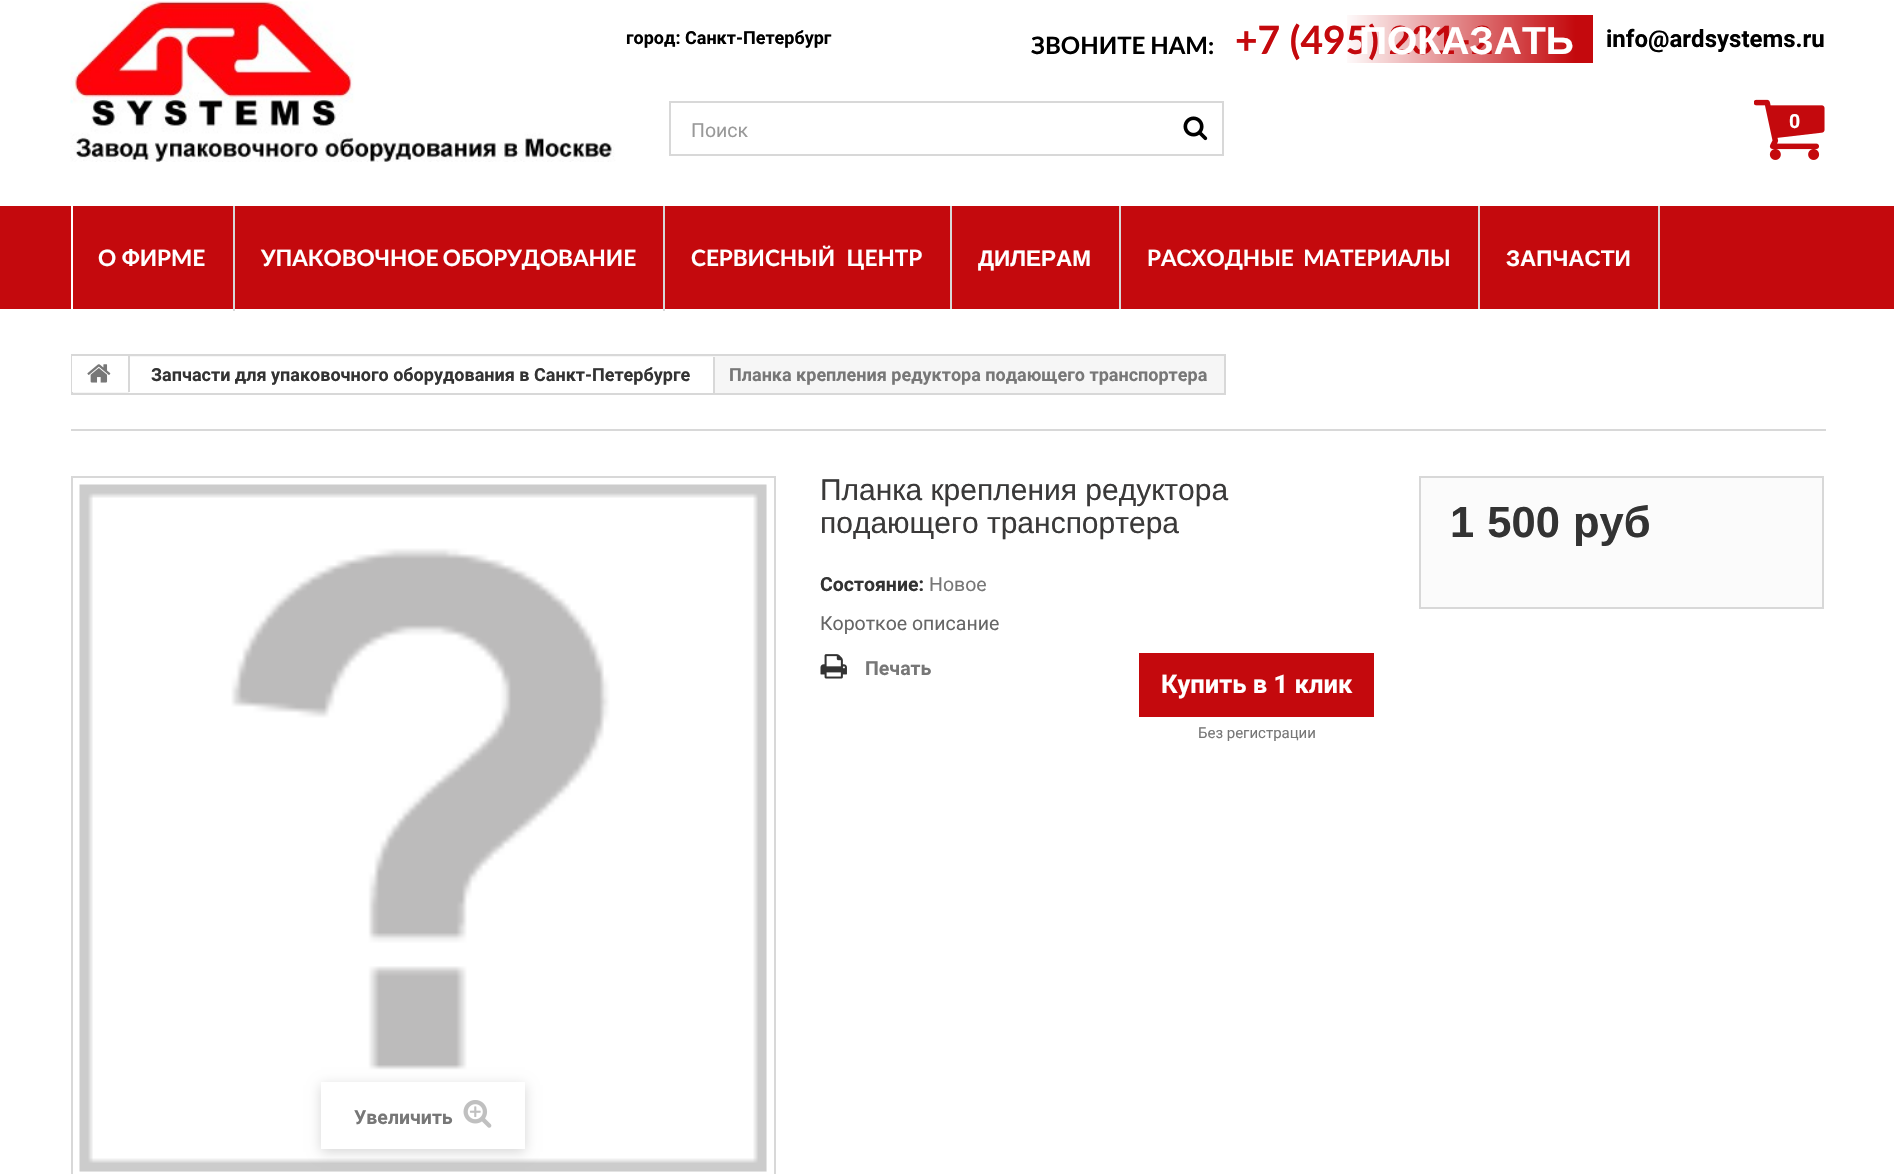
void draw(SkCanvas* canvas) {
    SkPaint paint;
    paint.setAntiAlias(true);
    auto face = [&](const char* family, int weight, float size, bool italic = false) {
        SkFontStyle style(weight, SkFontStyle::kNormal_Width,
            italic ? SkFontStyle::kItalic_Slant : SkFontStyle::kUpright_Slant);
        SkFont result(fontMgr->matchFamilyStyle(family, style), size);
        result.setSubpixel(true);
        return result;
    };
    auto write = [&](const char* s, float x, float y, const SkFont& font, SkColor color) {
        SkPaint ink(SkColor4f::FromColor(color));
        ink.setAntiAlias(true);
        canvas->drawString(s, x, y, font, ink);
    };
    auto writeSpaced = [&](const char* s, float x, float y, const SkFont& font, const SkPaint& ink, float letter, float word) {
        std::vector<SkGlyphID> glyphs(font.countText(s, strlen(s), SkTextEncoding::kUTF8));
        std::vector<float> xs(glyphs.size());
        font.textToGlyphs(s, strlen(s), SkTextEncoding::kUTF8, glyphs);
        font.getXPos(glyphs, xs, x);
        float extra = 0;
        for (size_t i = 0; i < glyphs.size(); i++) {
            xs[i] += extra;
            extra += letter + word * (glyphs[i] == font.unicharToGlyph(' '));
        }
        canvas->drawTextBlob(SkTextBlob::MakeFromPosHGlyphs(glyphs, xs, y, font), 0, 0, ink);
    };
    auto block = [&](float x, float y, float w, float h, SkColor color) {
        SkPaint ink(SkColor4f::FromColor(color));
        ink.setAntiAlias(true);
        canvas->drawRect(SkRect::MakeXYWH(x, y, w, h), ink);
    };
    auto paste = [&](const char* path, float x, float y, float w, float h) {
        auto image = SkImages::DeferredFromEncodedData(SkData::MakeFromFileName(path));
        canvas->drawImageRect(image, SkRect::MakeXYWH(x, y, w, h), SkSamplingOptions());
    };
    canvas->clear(SK_ColorWHITE);
    auto kFont1 = face("Roboto", 700, 18);
    write("город: Санкт-Петербург", 626, 44, kFont1, SK_ColorBLACK);
    auto kFont2 = face("Lato", 700, 24);
    paint.setColor(SK_ColorBLACK);
    writeSpaced("ЗВОНИТЕ НАМ:", 1031, 54, kFont2, paint, 0, -1);
    auto kFont3 = face("Lato", 700, 39);
    write("+7 (495) 231-2", 1235, 54, kFont3, SkColorSetRGB(196, 9, 13));
    {
        const SkColor colors[] = {SkColorSetARGB(0, 196, 9, 13), SkColorSetRGB(196, 9, 13)};
        const float stops[] = {0.3f, 0.95f};
        const SkPoint ends[] = {{1235, 39}, {1593, 39}};
        paint.setShader(SkGradientShader::MakeLinear(ends, colors, stops, 2, SkTileMode::kClamp));
        paint.setAlpha(255);
    }
    canvas->drawRect(SkRect::MakeXYWH(1347, 15, 246, 48), paint);
    auto kFont4 = face("Liberation Sans", 700, 39);
    write("ПОКАЗАТЬ", 1359, 54, kFont4, SK_ColorWHITE);
    auto kFont5 = face("Roboto", 700, 24);
    write("info@ardsystems.ru", 1606, 47, kFont5, SK_ColorBLACK);
    paste("pic1.png", 70, 1, 551, 161);
    paste("pic2.png", 1754, 99, 71, 61);
    auto kFont6 = face("Roboto", 700, 19.5f);
    write("0", 1789, 128, kFont6, SK_ColorWHITE);
    paint.setStyle(SkPaint::kStroke_Style);
    paint.setStrokeWidth(2);
    paint.setShader(nullptr);
    paint.setColor(SkColorSetRGB(216, 216, 216));
    canvas->drawRect(SkRect::MakeXYWH(670, 102, 553, 53), paint);
    auto kFont7 = face("Roboto", 400, 19.5f);
    write("Поиск", 691, 137, kFont7, SkColorSetRGB(153, 153, 153));
    paste("pic3.png", 1183, 116, 25, 25);
    block(0, 206, 1894, 103, SkColorSetRGB(196, 9, 13));
    block(233, 206, 2, 105, SkColorSetRGB(216, 216, 216));
    block(71, 206, 2, 105, SK_ColorWHITE);
    auto kFont8 = face("Lato", 700, 22.5f);
    write("О ФИРМЕ", 98, 266, kFont8, SK_ColorWHITE);
    block(663, 206, 2, 105, SkColorSetRGB(216, 216, 216));
    paint.setStyle(SkPaint::kFill_Style);
    paint.setColor(SK_ColorWHITE);
    writeSpaced("УПАКОВОЧНОЕ ОБОРУДОВАНИЕ", 261, 266, kFont8, paint, 0, -1);
    block(950, 206, 2, 103, SkColorSetRGB(216, 216, 216));
    writeSpaced("СЕРВИСНЫЙ ЦЕНТР", 691, 266, kFont8, paint, 0, 6);
    block(1119, 206, 2, 103, SkColorSetRGB(216, 216, 216));
    auto kFont9 = face("Liberation Sans", 700, 22.5f);
    write("ДИЛЕРАМ", 978, 266, kFont9, SK_ColorWHITE);
    block(1478, 206, 2, 103, SkColorSetRGB(216, 216, 216));
    writeSpaced("РАСХОДНЫЕ МАТЕРИАЛЫ", 1147, 266, kFont8, paint, 0, 4);
    block(1658, 206, 2, 103, SkColorSetRGB(216, 216, 216));
    write("ЗАПЧАСТИ", 1506, 266, kFont9, SK_ColorWHITE);
    paint.setColor(SkColorSetRGB(246, 246, 246));
    canvas->drawRect(SkRect::MakeXYWH(72, 355, 1153, 39), paint);
    paint.setStyle(SkPaint::kStroke_Style);
    paint.setColor(SkColorSetRGB(216, 216, 216));
    canvas->drawRect(SkRect::MakeXYWH(72, 355, 1153, 39), paint);
    block(72, 356, 56, 36, SK_ColorWHITE);
    block(129, 357, 584, 36, SK_ColorWHITE);
    block(128, 356, 2, 36, SkColorSetRGB(216, 216, 216));
    paste("pic4.png", 87, 364, 24, 19);
    block(713, 357, 2, 36, SkColorSetRGB(216, 216, 216));
    write("Запчасти для упаковочного оборудования в Санкт-Петербурге", 151, 381, kFont1, SkColorSetRGB(51, 51, 51));
    write("Планка крепления редуктора подающего транспортера", 729, 381, kFont1, SkColorSetRGB(119, 119, 119));
    block(71, 429, 1755, 2, SkColorSetRGB(216, 216, 216));
    auto kFont10 = face("Liberation Sans", 400, 30);
    write("Планка крепления редуктора", 820, 500, kFont10, SkColorSetRGB(58, 57, 57));
    write("подающего транспортера", 820, 533, kFont10, SkColorSetRGB(58, 57, 57));
    write("Состояние:", 820, 591, kFont6, SkColorSetRGB(51, 51, 51));
    write("Новое", 929, 591, kFont7, SkColorSetRGB(119, 119, 119));
    write("Короткое описание", 820, 630, kFont7, SkColorSetRGB(102, 102, 102));
    paste("pic5.png", 820, 654, 27, 25);
    write("Печать", 865, 675, kFont6, SkColorSetRGB(119, 119, 119));
    block(1139, 653, 235, 64, SkColorSetRGB(196, 9, 13));
    auto kFont11 = face("Roboto", 700, 25.5f);
    write("Купить в 1 клик", 1161, 693, kFont11, SK_ColorWHITE);
    auto kFont12 = face("Roboto", 400, 15);
    write("Без регистрации", 1198, 738, kFont12, SkColorSetRGB(119, 119, 119));
    paint.setStyle(SkPaint::kFill_Style);
    paint.setColor(SkColorSetRGB(251, 251, 251));
    canvas->drawRect(SkRect::MakeXYWH(1420, 477, 403, 131), paint);
    paint.setStyle(SkPaint::kStroke_Style);
    paint.setColor(SkColorSetRGB(216, 216, 216));
    canvas->drawRect(SkRect::MakeXYWH(1420, 477, 403, 131), paint);
    auto kFont13 = face("Liberation Sans", 700, 43.5f);
    paint.setStyle(SkPaint::kFill_Style);
    paint.setColor(SkColorSetRGB(51, 51, 51));
    writeSpaced("1 500 руб", 1450, 537, kFont13, paint, 0, 1);
    paint.setStyle(SkPaint::kStroke_Style);
    paint.setColor(SkColorSetRGB(216, 216, 216));
    canvas->drawRect(SkRect::MakeXYWH(72, 477, 703, 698), paint);
    block(80, 485, 687, 687, SkColorSetRGB(251, 251, 251));
    paste("pic6.png", 79, 484, 688, 688);
    canvas->save();
    canvas->clipPath(SkPathBuilder(SkPathFillType::kEvenOdd).moveTo(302, 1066).lineTo(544, 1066).lineTo(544, 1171).lineTo(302, 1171).close().moveTo(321, 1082).lineTo(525, 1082).lineTo(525, 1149).lineTo(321, 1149).close().detach(), true);
    paint.setStyle(SkPaint::kFill_Style);
    paint.setColor(SkColorSetARGB(41, 0, 0, 0));
    paint.setMaskFilter(SkMaskFilter::MakeBlur(kNormal_SkBlurStyle, 6));
    canvas->drawRect(SkRect::MakeXYWH(321, 1085, 204, 67), paint);
    paint.setMaskFilter(nullptr);
    canvas->restore();
    write("Увеличить", 354, 1124, kFont6, SkColorSetRGB(119, 119, 119));
    paste("pic7.png", 463, 1100, 29, 28);
}
